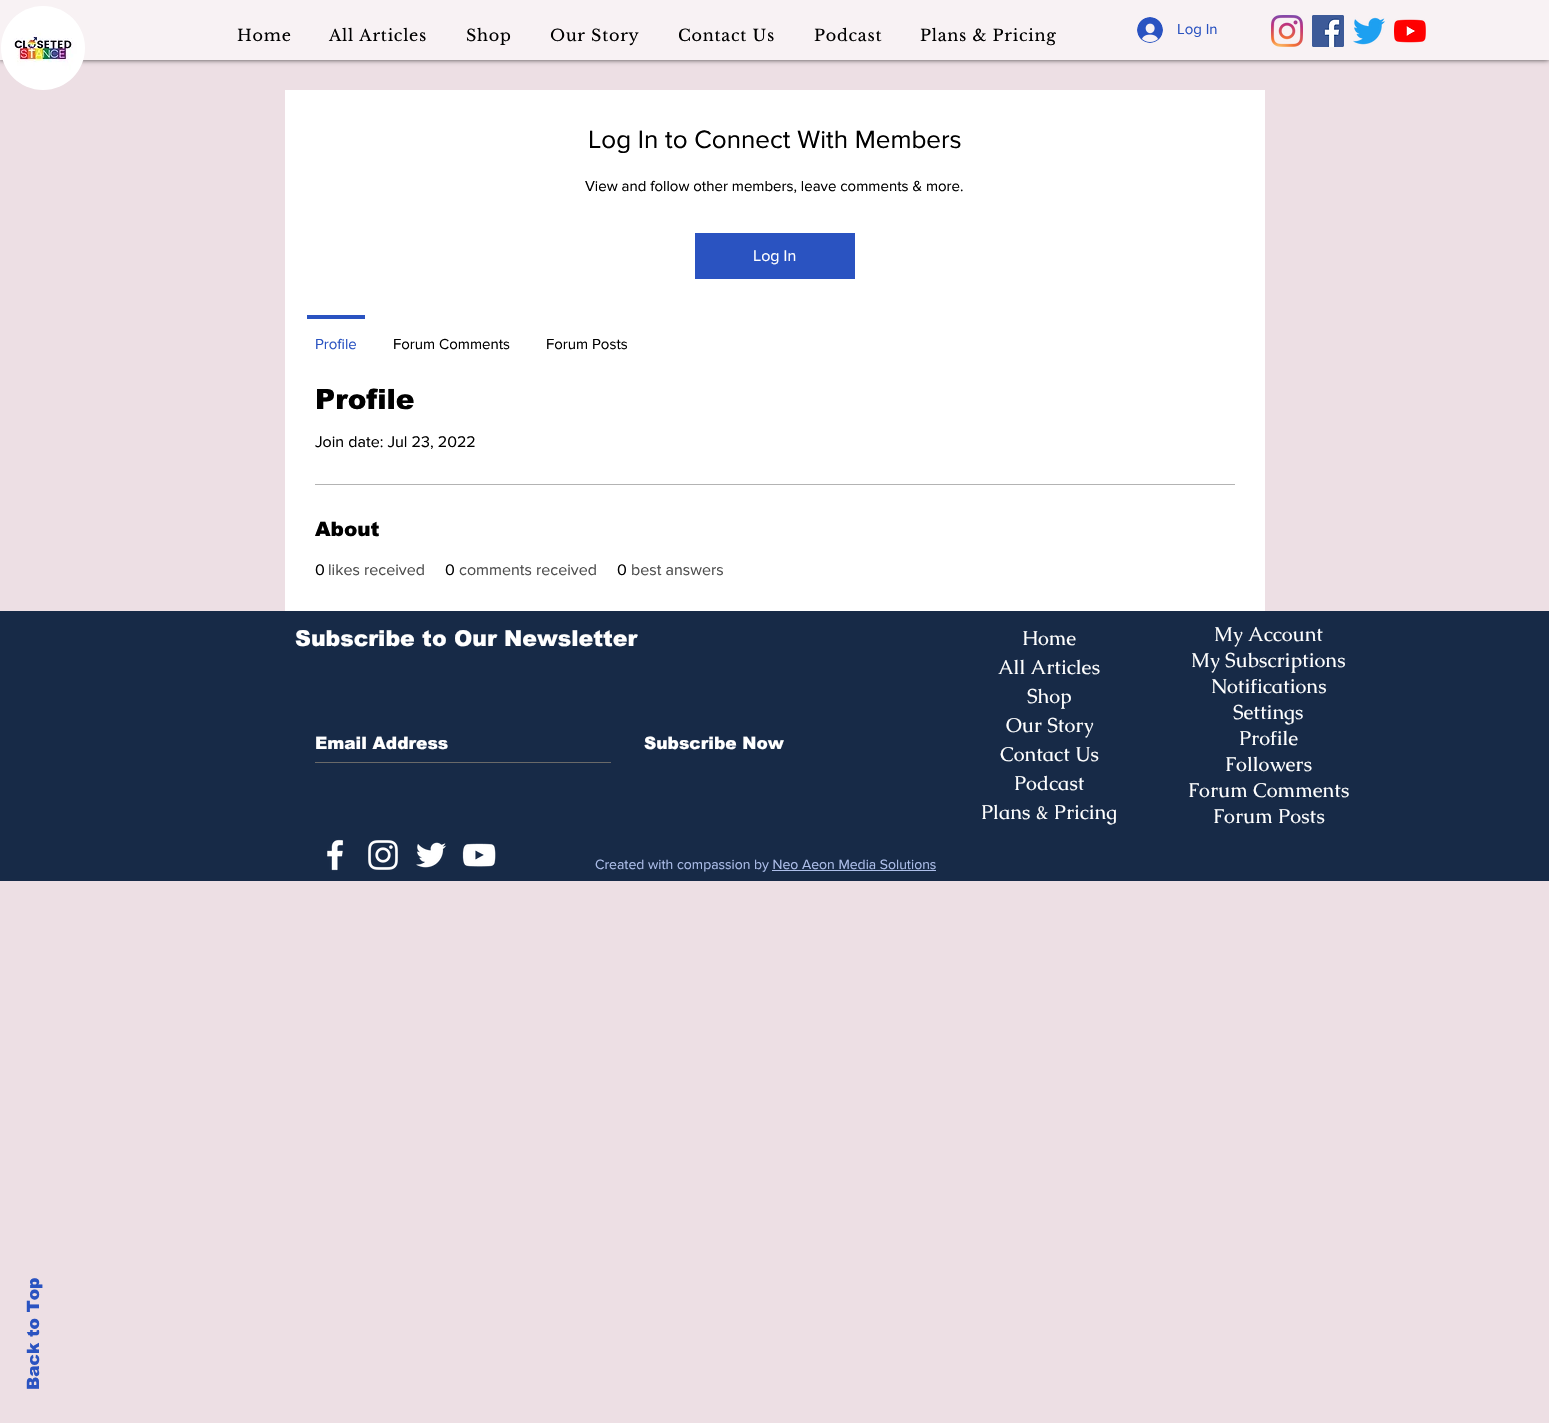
void draw(SkCanvas* canvas) {
    SkPaint paint;
    paint.setAntiAlias(true);
    auto face = [&](const char* family, int weight, float size, bool italic = false) {
        SkFontStyle style(weight, SkFontStyle::kNormal_Width,
            italic ? SkFontStyle::kItalic_Slant : SkFontStyle::kUpright_Slant);
        SkFont result(fontMgr->matchFamilyStyle(family, style), size);
        result.setSubpixel(true);
        return result;
    };
    auto write = [&](const char* s, float x, float y, const SkFont& font, SkColor color) {
        SkPaint ink(SkColor4f::FromColor(color));
        ink.setAntiAlias(true);
        canvas->drawString(s, x, y, font, ink);
    };
    auto writeSpaced = [&](const char* s, float x, float y, const SkFont& font, const SkPaint& ink, float letter, float word) {
        std::vector<SkGlyphID> glyphs(font.countText(s, strlen(s), SkTextEncoding::kUTF8));
        std::vector<float> xs(glyphs.size());
        font.textToGlyphs(s, strlen(s), SkTextEncoding::kUTF8, glyphs);
        font.getXPos(glyphs, xs, x);
        float extra = 0;
        for (size_t i = 0; i < glyphs.size(); i++) {
            xs[i] += extra;
            extra += letter + word * (glyphs[i] == font.unicharToGlyph(' '));
        }
        canvas->drawTextBlob(SkTextBlob::MakeFromPosHGlyphs(glyphs, xs, y, font), 0, 0, ink);
    };
    auto block = [&](float x, float y, float w, float h, SkColor color) {
        SkPaint ink(SkColor4f::FromColor(color));
        ink.setAntiAlias(true);
        canvas->drawRect(SkRect::MakeXYWH(x, y, w, h), ink);
    };
    auto paste = [&](const char* path, float x, float y, float w, float h) {
        auto image = SkImages::DeferredFromEncodedData(SkData::MakeFromFileName(path));
        canvas->drawImageRect(image, SkRect::MakeXYWH(x, y, w, h), SkSamplingOptions());
    };
    canvas->clear(SkColorSetRGB(237, 223, 228));
    paint.setColor(SkColorSetARGB(179, 0, 0, 0));
    paint.setMaskFilter(SkMaskFilter::MakeBlur(kNormal_SkBlurStyle, 2.5f));
    canvas->drawRect(SkRect::MakeXYWH(0, 0, 1549, 60), paint);
    paint.setMaskFilter(nullptr);
    block(0, 0, 1549, 60, SkColorSetRGB(248, 242, 244));
    paste("pic1.png", 1, 6, 84, 84);
    auto kFont1 = face("Libre Baskerville", 400, 16);
    paint.setColor(SK_ColorBLACK);
    writeSpaced("Home", 237, 41, kFont1, paint, 0.75f, 0);
    writeSpaced("All Articles", 329, 41, kFont1, paint, 0.75f, 0);
    writeSpaced("Shop", 466, 41, kFont1, paint, 0.75f, 0);
    writeSpaced("Our Story", 550, 41, kFont1, paint, 0.75f, 0);
    writeSpaced("Contact Us", 678, 41, kFont1, paint, 0.75f, 0);
    writeSpaced("Podcast", 814, 41, kFont1, paint, 0.75f, 0);
    writeSpaced("Plans & Pricing", 920, 41, kFont1, paint, 0.75f, 0);
    paste("pic2.png", 1137, 17, 26, 26);
    auto kFont2 = face("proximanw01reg", 400, 15);
    write("Log In", 1177, 34, kFont2, SkColorSetRGB(42, 83, 193));
    paste("pic3.png", 1271, 15, 32, 32);
    paste("pic4.png", 1312, 15, 32, 32);
    paste("pic5.png", 1353, 17, 32, 28);
    paste("pic6.png", 1394, 19, 32, 24);
    block(285, 90, 980, 521, SK_ColorWHITE);
    auto kFont3 = face("proximanw01reg", 400, 26);
    write("Log In to Connect With Members", 588, 148, kFont3, SK_ColorBLACK);
    write("View and follow other members, leave comments & more.", 585, 191, kFont2, SK_ColorBLACK);
    block(695, 233, 160, 46, SkColorSetRGB(42, 83, 193));
    auto kFont4 = face("proximanw01reg", 400, 16);
    write("Log In", 753, 261, kFont4, SK_ColorWHITE);
    block(307, 315, 58, 4, SkColorSetRGB(42, 83, 193));
    write("Profile", 315, 349, kFont2, SkColorSetRGB(42, 83, 193));
    write("Forum Comments", 393, 349, kFont2, SK_ColorBLACK);
    write("Forum Posts", 546, 349, kFont2, SK_ColorBLACK);
    auto kFont5 = face("arial", 900, 28);
    write("Profile", 315, 409, kFont5, SK_ColorBLACK);
    write("Join date: Jul 23, 2022", 315, 447, kFont4, SK_ColorBLACK);
    block(315, 484, 920, 1, SkColorSetRGB(179, 179, 179));
    auto kFont6 = face("arial", 900, 20);
    write("About", 315, 536, kFont6, SK_ColorBLACK);
    write("0", 315, 575, kFont4, SK_ColorBLACK);
    write("likes received", 328, 575, kFont4, SkColorSetRGB(77, 77, 77));
    write("0", 445, 575, kFont4, SK_ColorBLACK);
    write("comments received", 459, 575, kFont4, SkColorSetRGB(77, 77, 77));
    write("0", 617, 575, kFont4, SK_ColorBLACK);
    write("best answers", 631, 575, kFont4, SkColorSetRGB(77, 77, 77));
    block(0, 611, 1549, 270, SkColorSetRGB(23, 42, 71));
    auto kFont7 = face("arial", 900, 22);
    write("Subscribe to Our Newsletter", 295, 646, kFont7, SK_ColorWHITE);
    auto kFont8 = face("Caudex", 400, 20);
    write("Home", 1022, 645, kFont8, SK_ColorWHITE);
    write("All Articles", 998, 674, kFont8, SK_ColorWHITE);
    write("Shop", 1027, 703, kFont8, SK_ColorWHITE);
    write("Our Story", 1006, 732, kFont8, SK_ColorWHITE);
    write("Contact Us", 1000, 761, kFont8, SK_ColorWHITE);
    write("Podcast", 1014, 790, kFont8, SK_ColorWHITE);
    write("Plans & Pricing", 981, 819, kFont8, SK_ColorWHITE);
    write("My Account", 1214, 641, kFont8, SK_ColorWHITE);
    write("My Subscriptions", 1191, 667, kFont8, SK_ColorWHITE);
    write("Notifications", 1211, 693, kFont8, SK_ColorWHITE);
    write("Settings", 1233, 719, kFont8, SK_ColorWHITE);
    write("Profile", 1239, 745, kFont8, SK_ColorWHITE);
    write("Followers", 1225, 771, kFont8, SK_ColorWHITE);
    write("Forum Comments", 1188, 797, kFont8, SK_ColorWHITE);
    write("Forum Posts", 1213, 823, kFont8, SK_ColorWHITE);
    block(315, 762, 296, 1, SkColorSetRGB(105, 105, 105));
    auto kFont9 = face("arial", 900, 17);
    write("Email Address", 315, 749, kFont9, SK_ColorWHITE);
    write("Subscribe Now", 644, 749, kFont9, SK_ColorWHITE);
    paste("pic7.png", 327, 839, 17, 32);
    paste("pic8.png", 368, 840, 30, 30);
    paste("pic9.png", 416, 842, 31, 26);
    paste("pic10.png", 462, 843, 34, 24);
    auto kFont10 = face("proximanw01reg", 400, 14);
    write("Created with compassion by Neo Aeon Media Solutions", 595, 869, kFont10, SkColorSetRGB(173, 190, 234));
    block(772, 870, 164, 1, SkColorSetRGB(173, 190, 234));
    canvas->save();
    canvas->rotate(-90, 39, 1390);
    write("Back to Top", 39, 1390, kFont9, SkColorSetRGB(42, 83, 193));
    canvas->restore();
}
